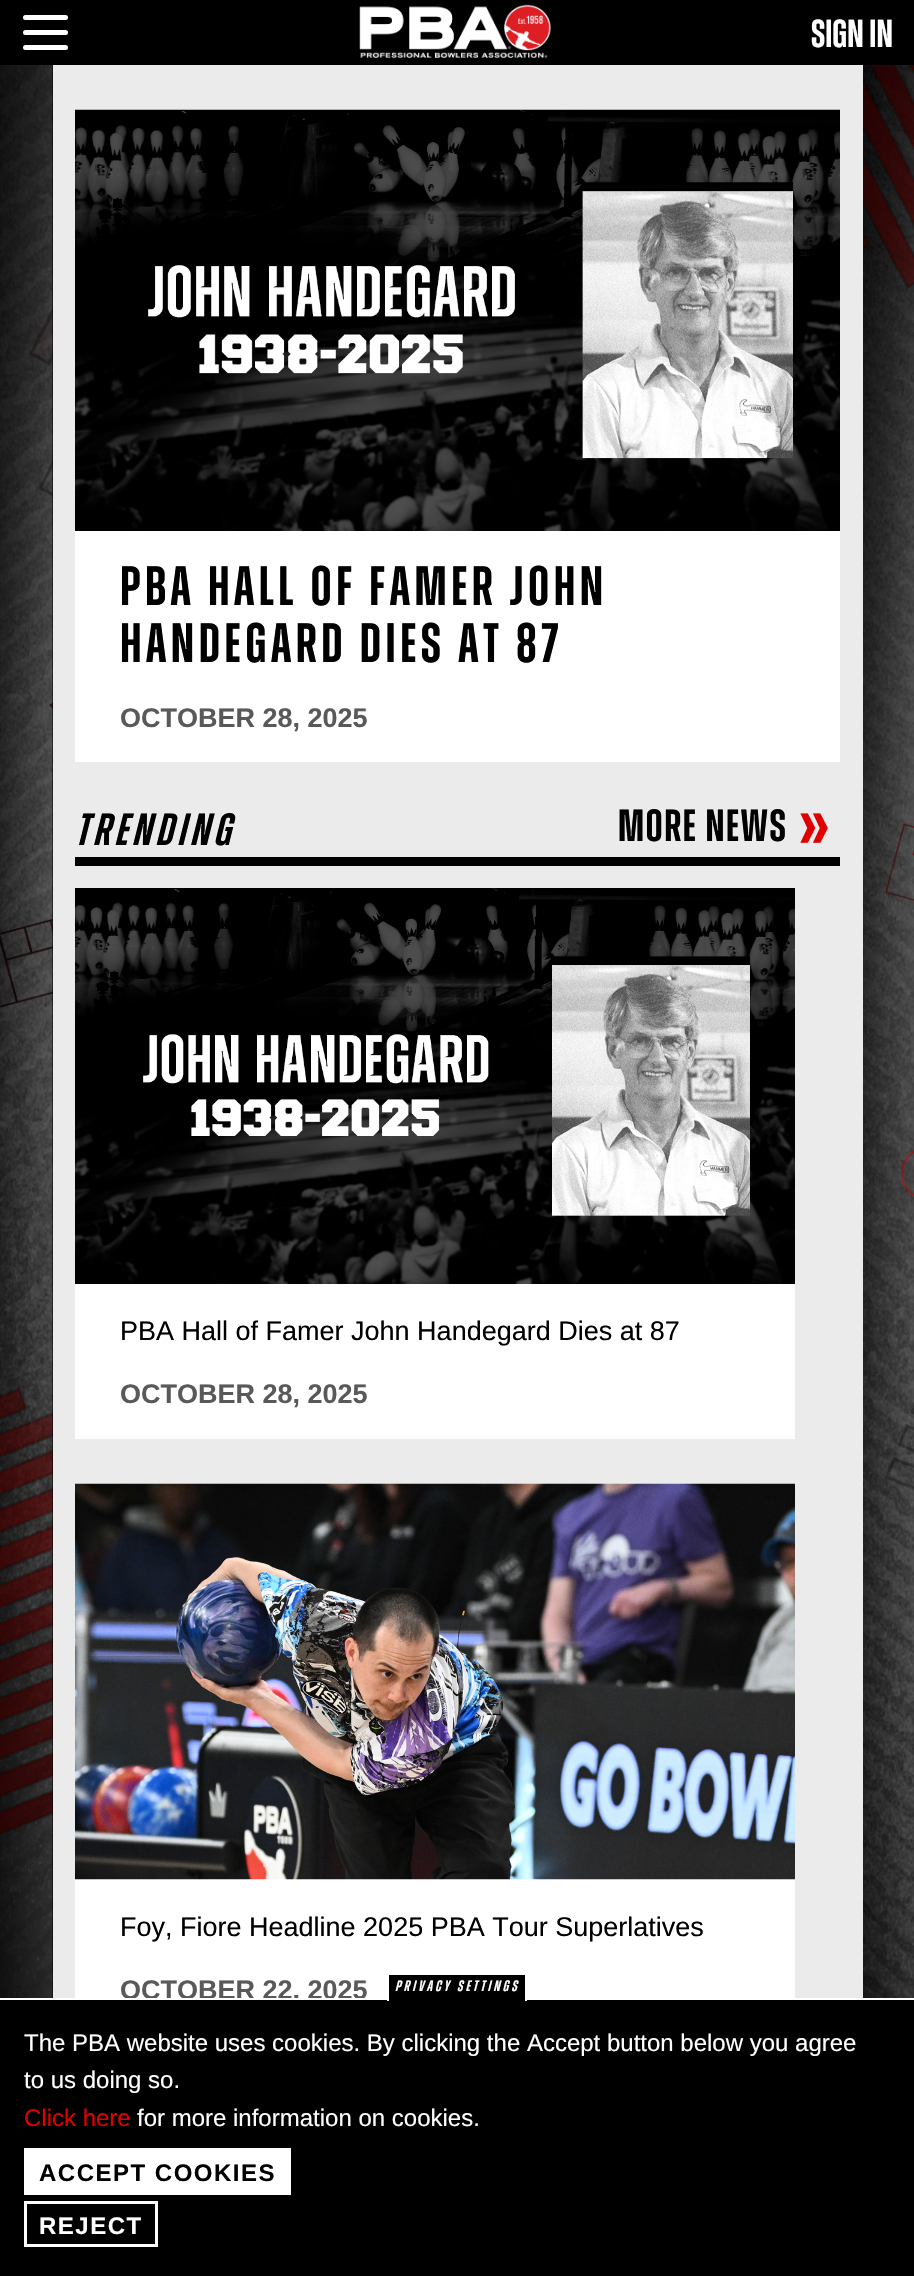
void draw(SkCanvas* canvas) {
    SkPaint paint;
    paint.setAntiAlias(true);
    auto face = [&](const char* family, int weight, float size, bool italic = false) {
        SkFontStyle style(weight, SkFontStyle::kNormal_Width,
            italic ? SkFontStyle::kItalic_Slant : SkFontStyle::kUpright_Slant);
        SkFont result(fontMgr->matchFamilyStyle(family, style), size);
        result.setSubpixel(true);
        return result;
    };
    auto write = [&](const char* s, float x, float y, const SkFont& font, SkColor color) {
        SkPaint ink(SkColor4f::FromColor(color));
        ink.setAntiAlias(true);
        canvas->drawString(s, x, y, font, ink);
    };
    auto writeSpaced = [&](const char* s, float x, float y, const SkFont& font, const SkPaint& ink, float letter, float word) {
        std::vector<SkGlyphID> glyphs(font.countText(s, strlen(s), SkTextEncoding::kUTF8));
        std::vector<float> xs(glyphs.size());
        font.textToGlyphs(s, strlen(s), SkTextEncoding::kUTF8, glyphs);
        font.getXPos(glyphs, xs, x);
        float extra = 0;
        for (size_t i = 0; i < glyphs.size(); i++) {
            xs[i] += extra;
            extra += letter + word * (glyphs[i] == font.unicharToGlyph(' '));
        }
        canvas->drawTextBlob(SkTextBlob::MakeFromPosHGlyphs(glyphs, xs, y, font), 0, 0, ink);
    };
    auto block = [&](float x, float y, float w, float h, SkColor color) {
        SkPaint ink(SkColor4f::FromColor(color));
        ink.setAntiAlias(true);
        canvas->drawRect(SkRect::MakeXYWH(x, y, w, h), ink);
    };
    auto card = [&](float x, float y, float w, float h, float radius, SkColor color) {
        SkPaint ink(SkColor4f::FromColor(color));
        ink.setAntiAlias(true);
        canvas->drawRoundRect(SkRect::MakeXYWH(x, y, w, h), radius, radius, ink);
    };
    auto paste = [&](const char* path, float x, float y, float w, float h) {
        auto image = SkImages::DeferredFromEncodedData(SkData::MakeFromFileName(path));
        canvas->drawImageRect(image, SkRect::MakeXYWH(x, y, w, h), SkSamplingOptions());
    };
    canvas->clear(SK_ColorBLACK);
    card(23, 45, 45, 5, 2.5f, SK_ColorWHITE);
    card(23, 15, 45, 5, 2.5f, SK_ColorWHITE);
    card(23, 30, 45, 5, 2.5f, SK_ColorWHITE);
    paste("pic1.png", 359, 4, 192, 54);
    auto kFont1 = face("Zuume", 600, 39);
    write("Sign In", 811, 47, kFont1, SK_ColorWHITE);
    paste("pic2.png", 0, 65, 53, 1933);
    block(53, 65, 810, 1933, SkColorSetRGB(235, 235, 235));
    paste("pic3.png", 863, 65, 51, 1933);
    block(75, 531, 765, 231, SK_ColorWHITE);
    paste("pic4.png", 75, 109, 765, 422);
    auto kFont2 = face("Zuume", 600, 55.5f);
    paint.setColor(SK_ColorBLACK);
    writeSpaced("PBA HALL OF FAMER JOHN", 120, 605, kFont2, paint, 4.5f, 0);
    writeSpaced("HANDEGARD DIES AT 87", 120, 662, kFont2, paint, 4.5f, 0);
    auto kFont3 = face("Liberation Sans", 700, 27);
    write("OCTOBER 28, 2025", 120, 727, kFont3, SkColorSetRGB(89, 89, 89));
    block(75, 857, 765, 9, SK_ColorBLACK);
    auto kFont4 = face("Zuume", 600, 45, true);
    writeSpaced("TRENDING", 75, 845, kFont4, paint, 4.5f, 0);
    auto kFont5 = face("Zuume", 600, 45);
    writeSpaced("MORE NEWS", 618, 841, kFont5, paint, 1.5f, 0);
    paste("pic5.png", 800, 813, 28, 30);
    block(75, 1284, 720, 155, SK_ColorWHITE);
    paste("pic6.png", 75, 888, 720, 396);
    auto kFont6 = face("Liberation Sans", 400, 27);
    write("PBA Hall of Famer John Handegard Dies at 87", 120, 1340, kFont6, SK_ColorBLACK);
    write("OCTOBER 28, 2025", 120, 1403, kFont3, SkColorSetRGB(89, 89, 89));
    block(75, 1879, 720, 119, SK_ColorWHITE);
    paste("pic7.png", 75, 1483, 720, 397);
    write("Foy, Fiore Headline 2025 PBA Tour Superlatives", 120, 1936, kFont6, SK_ColorBLACK);
    write("OCTOBER 22, 2025", 120, 1999, kFont3, SkColorSetRGB(89, 89, 89));
    block(0, 1998, 914, 2, SK_ColorWHITE);
    block(389, 1975, 136, 25, SK_ColorBLACK);
    block(525, 2000, 2, 1, SK_ColorWHITE);
    block(387, 2000, 2, 1, SK_ColorWHITE);
    auto kFont7 = face("Zuume", 600, 15, true);
    paint.setColor(SK_ColorWHITE);
    writeSpaced("PRIVACY SETTINGS", 395, 1991, kFont7, paint, 3, 0);
    block(294, 2000, 4, 4, SK_ColorBLACK);
    auto kFont8 = face("Liberation Sans", 400, 24);
    write("The PBA website uses cookies. By clicking the Accept button below you agree", 24, 2051, kFont8, SK_ColorWHITE);
    write("to us doing so.", 24, 2088, kFont8, SK_ColorWHITE);
    write("Click here", 24, 2126, kFont8, SkColorSetRGB(224, 0, 0));
    write("for more information on cookies.", 137, 2126, kFont8, SK_ColorWHITE);
    block(24, 2148, 267, 47, SK_ColorWHITE);
    auto kFont9 = face("Liberation Sans", 700, 24);
    paint.setColor(SK_ColorBLACK);
    writeSpaced("ACCEPT COOKIES", 39, 2181, kFont9, paint, 1.5f, 0);
    paint.setStyle(SkPaint::kStroke_Style);
    paint.setStrokeWidth(3);
    paint.setColor(SK_ColorWHITE);
    canvas->drawRect(SkRect::MakeXYWH(25.5f, 2202.5f, 131, 43), paint);
    paint.setStyle(SkPaint::kFill_Style);
    writeSpaced("REJECT", 39, 2234, kFont9, paint, 1.5f, 0);
}
